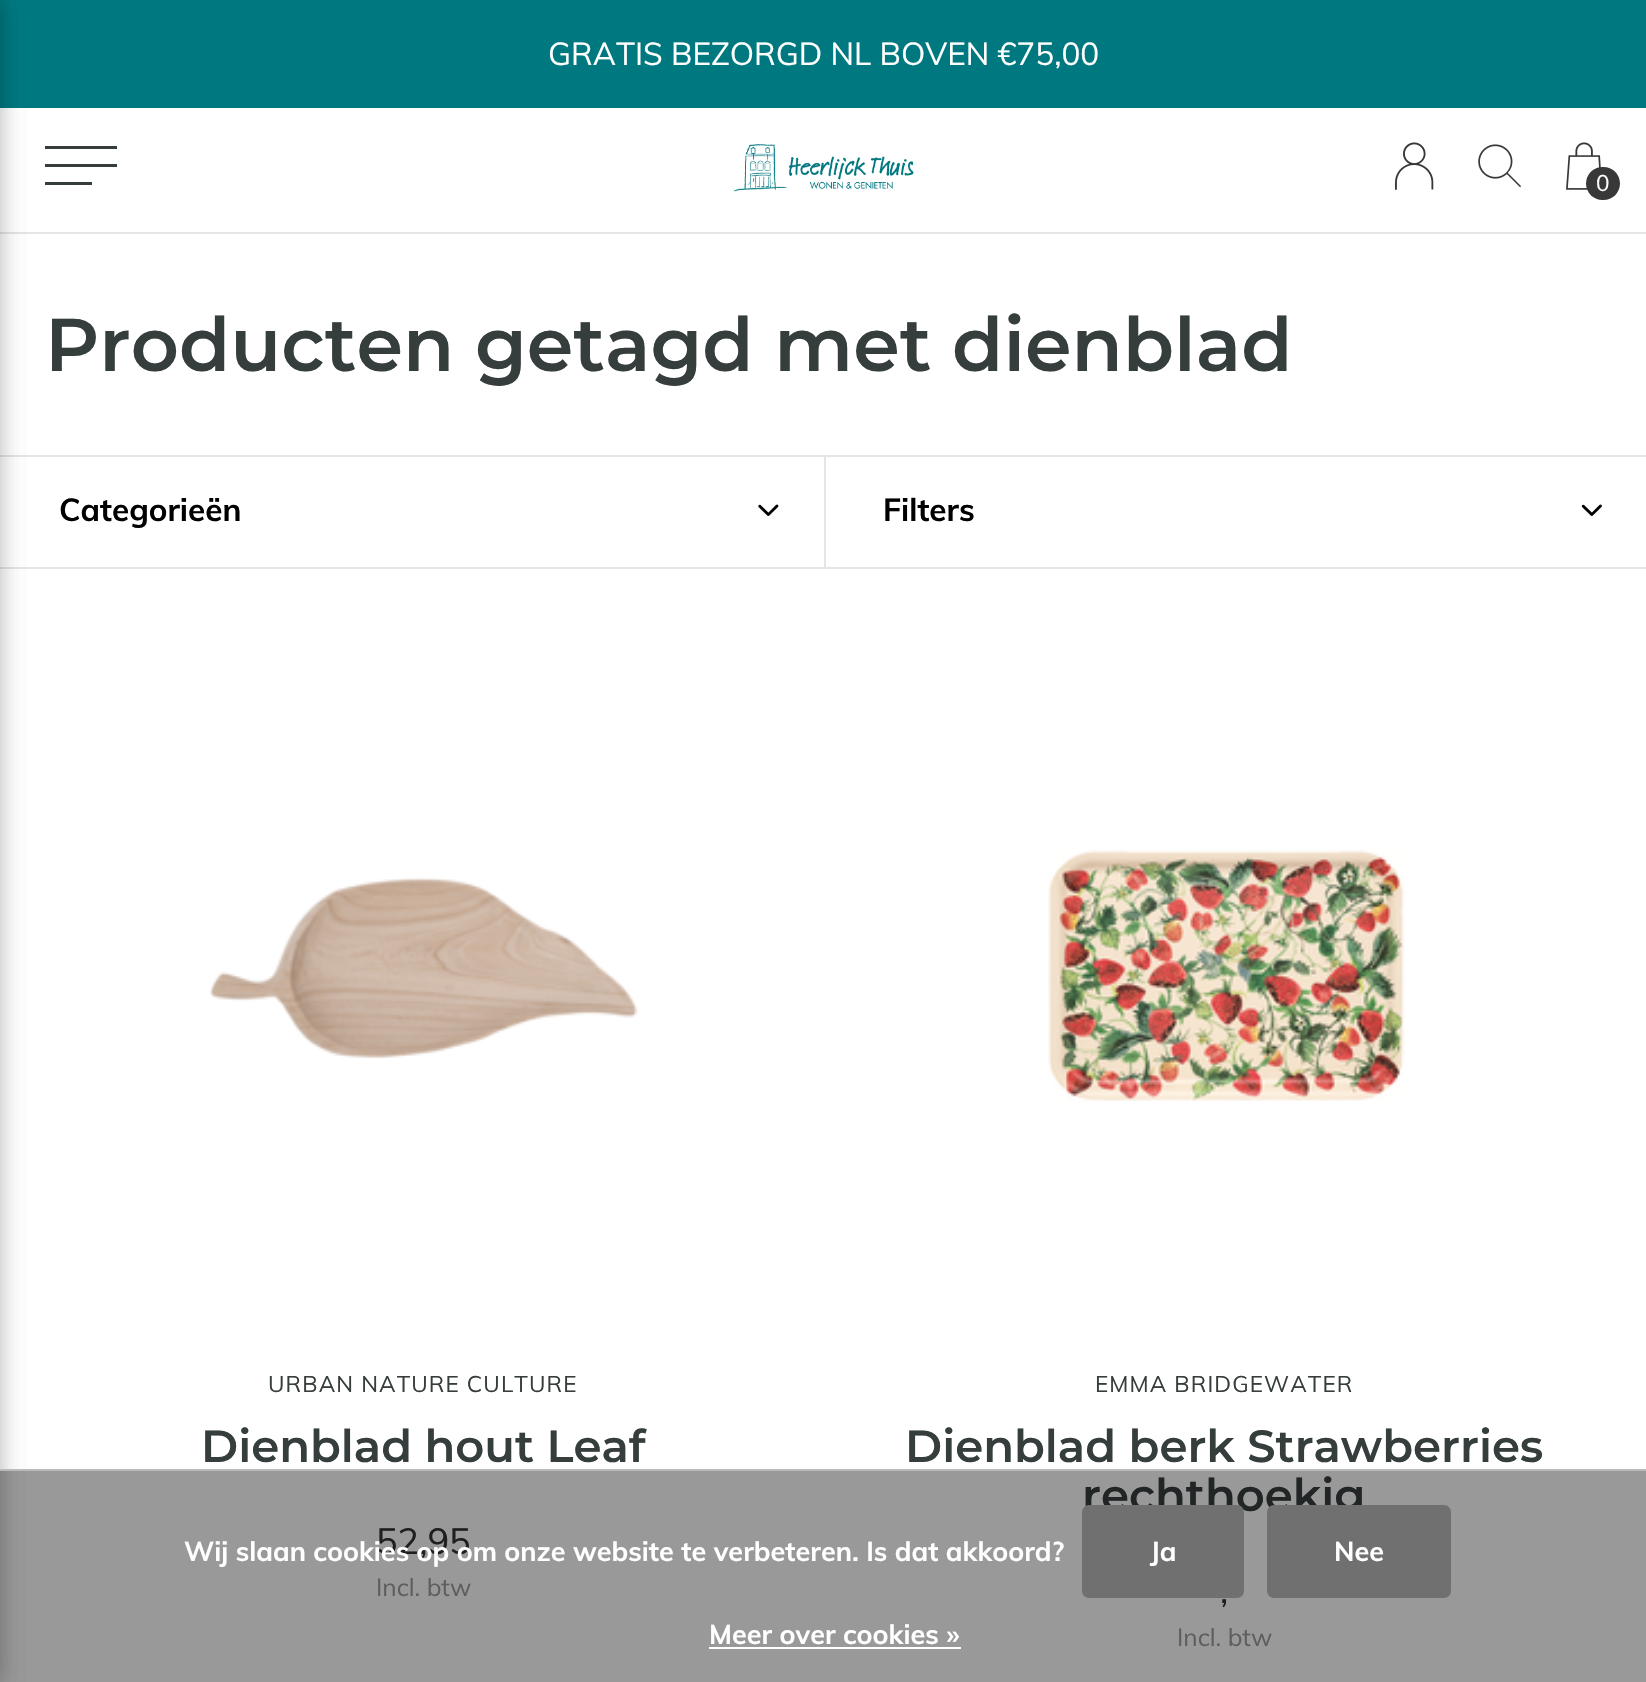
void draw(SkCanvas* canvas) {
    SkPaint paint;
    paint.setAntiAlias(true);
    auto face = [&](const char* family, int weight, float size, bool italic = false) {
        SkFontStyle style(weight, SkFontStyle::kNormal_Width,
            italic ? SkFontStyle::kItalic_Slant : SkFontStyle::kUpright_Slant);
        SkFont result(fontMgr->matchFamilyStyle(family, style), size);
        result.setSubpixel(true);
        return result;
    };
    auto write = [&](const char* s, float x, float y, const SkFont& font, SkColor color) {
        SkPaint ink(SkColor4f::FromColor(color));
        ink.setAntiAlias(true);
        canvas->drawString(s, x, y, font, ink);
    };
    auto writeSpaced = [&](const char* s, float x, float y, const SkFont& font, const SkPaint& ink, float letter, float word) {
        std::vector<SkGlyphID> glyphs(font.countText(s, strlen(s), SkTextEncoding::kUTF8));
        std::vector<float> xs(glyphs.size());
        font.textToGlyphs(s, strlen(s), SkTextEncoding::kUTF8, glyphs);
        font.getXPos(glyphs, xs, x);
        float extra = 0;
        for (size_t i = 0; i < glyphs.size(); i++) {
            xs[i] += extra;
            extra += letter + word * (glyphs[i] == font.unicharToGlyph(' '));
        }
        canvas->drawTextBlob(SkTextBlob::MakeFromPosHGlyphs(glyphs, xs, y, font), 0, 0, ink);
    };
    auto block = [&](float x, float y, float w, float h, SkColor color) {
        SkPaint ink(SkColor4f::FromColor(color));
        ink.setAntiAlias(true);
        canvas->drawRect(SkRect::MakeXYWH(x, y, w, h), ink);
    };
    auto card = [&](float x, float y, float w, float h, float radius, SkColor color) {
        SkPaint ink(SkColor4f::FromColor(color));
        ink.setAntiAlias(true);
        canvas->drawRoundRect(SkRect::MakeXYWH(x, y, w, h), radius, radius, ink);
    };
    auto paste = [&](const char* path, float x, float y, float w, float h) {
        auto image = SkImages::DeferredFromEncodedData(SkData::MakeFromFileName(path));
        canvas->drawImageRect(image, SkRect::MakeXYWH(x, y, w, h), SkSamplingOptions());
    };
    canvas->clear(SK_ColorWHITE);
    block(0, 0, 1646, 108, SkColorSetRGB(0, 120, 128));
    block(0, 232, 1646, 2, SkColorSetRGB(229, 229, 229));
    block(0, 455, 1646, 2, SkColorSetRGB(229, 229, 229));
    block(0, 567, 1646, 2, SkColorSetRGB(229, 229, 229));
    paint.setColor(SkColorSetARGB(26, 0, 0, 0));
    paint.setMaskFilter(SkMaskFilter::MakeBlur(kNormal_SkBlurStyle, 11));
    canvas->drawRect(SkRect::MakeXYWH(-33, 0, 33, 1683), paint);
    paint.setMaskFilter(nullptr);
    paint.setMaskFilter(SkMaskFilter::MakeBlur(kNormal_SkBlurStyle, 11));
    canvas->drawRect(SkRect::MakeXYWH(-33, 0, 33, 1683), paint);
    paint.setMaskFilter(nullptr);
    auto kFont1 = face("Muli", 400, 31.5f);
    write("GRATIS BEZORGD NL BOVEN €75,00", 548, 65, kFont1, SK_ColorWHITE);
    paint.setColor(SkColorSetRGB(54, 61, 61));
    canvas->drawPath(SkPathBuilder().moveTo(45, 146).lineTo(117, 146).lineTo(117, 149).lineTo(45, 149).close().moveTo(45, 164).lineTo(117, 164).lineTo(117, 167).lineTo(45, 167).close().moveTo(45, 182).lineTo(92, 182).lineTo(92, 185).lineTo(45, 185).close().detach(), paint);
    paste("pic1.png", 733, 144, 181, 48);
    paste("pic2.png", 1395, 142, 39, 48);
    paste("pic3.png", 1478, 144, 43, 44);
    paste("pic4.png", 1566, 142, 35, 48);
    card(1586, 167, 34, 33, 16.5f, SkColorSetRGB(56, 56, 56));
    auto kFont2 = face("Muli", 400, 22.5f);
    write("0", 1596, 191, kFont2, SK_ColorWHITE);
    auto kFont3 = face("Montserrat", 600, 74.8f);
    write("Producten getagd met dienblad", 45, 371, kFont3, SkColorSetRGB(54, 61, 61));
    paint.setColor(SkColorSetARGB(26, 0, 0, 0));
    paint.setMaskFilter(SkMaskFilter::MakeBlur(kNormal_SkBlurStyle, 11));
    canvas->drawRect(SkRect::MakeXYWH(-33, 0, 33, 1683), paint);
    paint.setMaskFilter(nullptr);
    auto kFont4 = face("Muli", 700, 31.5f);
    write("Categorieën", 59, 521, kFont4, SK_ColorBLACK);
    paste("pic5.png", 758, 504, 21, 12);
    block(824, 457, 2, 112, SkColorSetRGB(229, 229, 229));
    write("Filters", 883, 521, kFont4, SK_ColorBLACK);
    paste("pic6.png", 1581, 504, 21, 12);
    paste("pic7.png", 209, 877, 429, 182);
    paint.setColor(SkColorSetRGB(54, 61, 61));
    writeSpaced("URBAN NATURE CULTURE", 268, 1392, kFont2, paint, 1.1f, 0);
    auto kFont5 = face("Montserrat", 600, 45);
    write("Dienblad hout Leaf", 201, 1462, kFont5, SkColorSetRGB(54, 61, 61));
    auto kFont6 = face("Muli", 400, 36);
    write("52,95", 376, 1554, kFont6, SkColorSetRGB(51, 51, 51));
    auto kFont7 = face("Muli", 400, 24.5f);
    write("Incl. btw", 376, 1596, kFont7, SkColorSetRGB(156, 156, 156));
    paste("pic8.png", 1048, 850, 357, 251);
    writeSpaced("EMMA BRIDGEWATER", 1095, 1392, kFont2, paint, 1.1f, 0);
    write("Dienblad berk Strawberries", 905, 1462, kFont5, SkColorSetRGB(54, 61, 61));
    write("rechthoekig", 1082, 1511, kFont5, SkColorSetRGB(54, 61, 61));
    write(",", 1220, 1603, kFont6, SkColorSetRGB(51, 51, 51));
    write("Incl. btw", 1177, 1646, kFont7, SkColorSetRGB(156, 156, 156));
    block(0, 1471, 1646, 211, SkColorSetARGB(102, 0, 0, 0));
    block(0, 1469, 1646, 2, SkColorSetRGB(187, 187, 187));
    auto kFont8 = face("Muli", 700, 27);
    write("Wij slaan cookies op om onze website te verbeteren. Is dat akkoord?", 184, 1561, kFont8, SK_ColorWHITE);
    card(1082, 1505, 162, 93, 7, SkColorSetRGB(112, 112, 112));
    write("Ja", 1150, 1561, kFont8, SK_ColorWHITE);
    card(1267, 1505, 184, 93, 7, SkColorSetRGB(112, 112, 112));
    write("Nee", 1334, 1561, kFont8, SK_ColorWHITE);
    write("Meer over cookies »", 709, 1644, kFont8, SK_ColorWHITE);
    block(709, 1647, 252, 2, SK_ColorWHITE);
}
